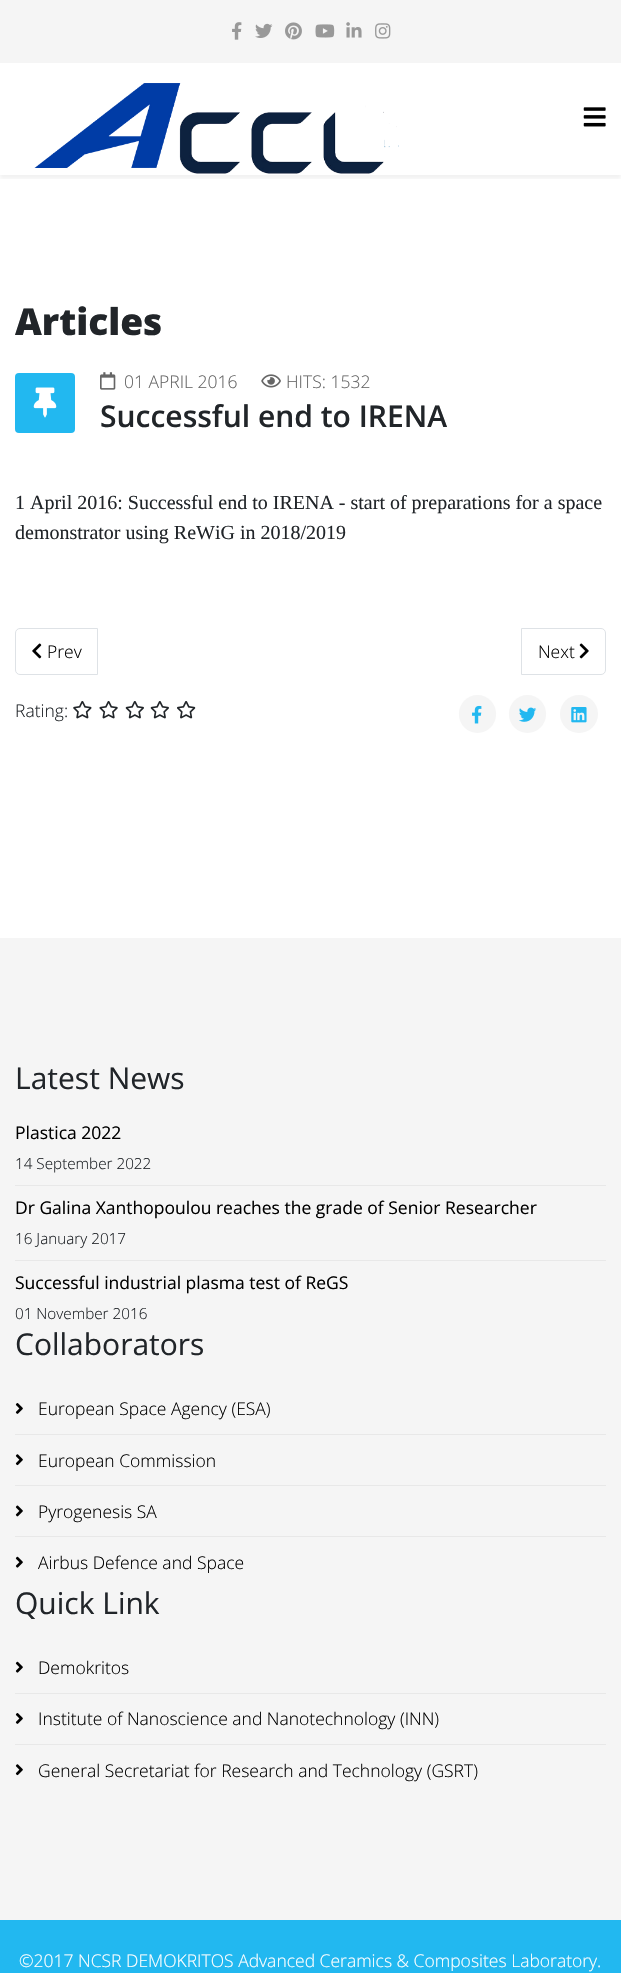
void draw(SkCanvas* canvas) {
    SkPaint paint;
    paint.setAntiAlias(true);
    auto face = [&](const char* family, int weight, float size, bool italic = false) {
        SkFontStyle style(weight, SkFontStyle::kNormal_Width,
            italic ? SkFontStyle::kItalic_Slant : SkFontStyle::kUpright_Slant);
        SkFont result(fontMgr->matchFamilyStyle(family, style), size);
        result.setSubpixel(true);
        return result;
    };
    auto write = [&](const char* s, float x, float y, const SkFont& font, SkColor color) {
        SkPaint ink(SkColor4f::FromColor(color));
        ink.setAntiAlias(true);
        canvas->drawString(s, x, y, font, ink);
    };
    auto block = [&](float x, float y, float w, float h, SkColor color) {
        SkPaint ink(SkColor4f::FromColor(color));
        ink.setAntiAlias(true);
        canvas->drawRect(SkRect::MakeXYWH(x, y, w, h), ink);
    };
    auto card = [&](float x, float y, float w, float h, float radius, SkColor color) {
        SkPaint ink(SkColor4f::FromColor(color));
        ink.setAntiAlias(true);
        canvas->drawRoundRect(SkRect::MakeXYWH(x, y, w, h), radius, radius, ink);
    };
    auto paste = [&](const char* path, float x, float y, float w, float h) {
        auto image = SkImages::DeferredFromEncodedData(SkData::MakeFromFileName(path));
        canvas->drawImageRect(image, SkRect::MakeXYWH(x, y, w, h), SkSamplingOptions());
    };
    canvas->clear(SK_ColorWHITE);
    block(0, 0, 621, 63, SkColorSetRGB(245, 245, 245));
    paste("pic1.png", 232, 22, 10, 18);
    paste("pic2.png", 255, 23, 18, 15);
    paste("pic3.png", 285, 22, 17, 18);
    paste("pic4.png", 315, 24, 20, 14);
    paste("pic5.png", 346, 22, 16, 16);
    paste("pic6.png", 375, 23, 16, 16);
    canvas->save();
    canvas->clipRect(SkRect::MakeXYWH(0, 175, 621, 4));
    paint.setColor(SkColorSetARGB(13, 0, 0, 0));
    paint.setMaskFilter(SkMaskFilter::MakeBlur(kNormal_SkBlurStyle, 2));
    canvas->drawRect(SkRect::MakeXYWH(0, 66, 621, 113), paint);
    paint.setMaskFilter(nullptr);
    canvas->restore();
    paste("pic7.png", 34, 83, 365, 91);
    paste("pic8.png", 583, 107, 23, 20);
    auto kFont1 = face("Open Sans", 800, 37);
    write("Articles", 15, 335, kFont1, SkColorSetRGB(33, 37, 41));
    card(15, 373, 60, 60, 4, SkColorSetRGB(34, 184, 240));
    paste("pic9.png", 33, 387, 24, 31);
    paste("pic10.png", 100, 372, 16, 18);
    auto kFont2 = face("Open Sans", 300, 17.5f);
    write("01 APRIL 2016", 124, 388, kFont2, SkColorSetRGB(102, 102, 102));
    paste("pic11.png", 261, 374, 20, 14);
    write("HITS: 1532", 286, 388, kFont2, SkColorSetRGB(102, 102, 102));
    auto kFont3 = face("Open Sans", 600, 30);
    write("Successful end to IRENA", 100, 427, kFont3, SkColorSetRGB(33, 37, 41));
    auto kFont4 = face("Liberation Serif", 400, 20);
    write("1 April 2016: Successful end to IRENA - start of preparations for a space", 15, 509, kFont4, SkColorSetRGB(33, 37, 41));
    write("demonstrator using ReWiG in 2018/2019", 15, 539, kFont4, SkColorSetRGB(33, 37, 41));
    paint.setStyle(SkPaint::kStroke_Style);
    paint.setStrokeWidth(1);
    paint.setColor(SkColorSetRGB(222, 226, 230));
    canvas->drawPath(SkPathBuilder().moveTo(20, 628.5f).lineTo(97.5f, 628.5f).lineTo(97.5f, 674.5f).lineTo(20, 674.5f).cubicTo(17.5f, 674.5f, 15.5f, 672.5f, 15.5f, 670).lineTo(15.5f, 633).cubicTo(15.5f, 630.5f, 17.5f, 628.5f, 20, 628.5f).close().detach(), paint);
    paste("pic12.png", 32, 643, 10, 16);
    write("Prev", 47, 658, kFont2, SK_ColorBLACK);
    canvas->drawPath(SkPathBuilder().moveTo(521.5f, 628.5f).lineTo(601, 628.5f).cubicTo(603.5f, 628.5f, 605.5f, 630.5f, 605.5f, 633).lineTo(605.5f, 670).cubicTo(605.5f, 672.5f, 603.5f, 674.5f, 601, 674.5f).lineTo(521.5f, 674.5f).close().detach(), paint);
    write("Next", 538, 658, kFont2, SK_ColorBLACK);
    paste("pic13.png", 579, 643, 10, 16);
    write("Rating:", 15, 717, kFont2, SkColorSetRGB(33, 37, 41));
    paste("pic14.png", 73, 701, 19, 18);
    paste("pic15.png", 99, 701, 19, 18);
    paste("pic16.png", 125, 701, 19, 18);
    paste("pic16.png", 150, 701, 19, 18);
    paste("pic17.png", 177, 701, 19, 18);
    card(459, 695, 37, 38, 18.5f, SkColorSetRGB(245, 245, 245));
    paste("pic18.png", 472, 705, 10, 19);
    card(509, 695, 37, 38, 18.5f, SkColorSetRGB(245, 245, 245));
    paste("pic19.png", 519, 707, 18, 15);
    paint.setStyle(SkPaint::kFill_Style);
    paint.setColor(SkColorSetRGB(245, 245, 245));
    canvas->drawCircle(579, 714, 19, paint);
    paste("pic20.png", 571, 707, 16, 16);
    block(0, 938, 621, 982, SkColorSetRGB(245, 245, 245));
    auto kFont5 = face("Open Sans", 400, 30);
    write("Latest News", 15, 1089, kFont5, SkColorSetRGB(33, 37, 41));
    block(15, 1185, 591, 1, SkColorSetRGB(232, 232, 232));
    auto kFont6 = face("Open Sans", 400, 17.5f);
    write("Plastica 2022", 15, 1139, kFont6, SK_ColorBLACK);
    auto kFont7 = face("Open Sans", 300, 15.25f);
    write("14 September 2022", 15, 1169, kFont7, SkColorSetRGB(33, 37, 41));
    block(15, 1260, 591, 1, SkColorSetRGB(232, 232, 232));
    write("Dr Galina Xanthopoulou reaches the grade of Senior Researcher", 15, 1214, kFont6, SK_ColorBLACK);
    write("16 January 2017", 15, 1244, kFont7, SkColorSetRGB(33, 37, 41));
    write("Successful industrial plasma test of ReGS", 15, 1289, kFont6, SK_ColorBLACK);
    write("01 November 2016", 15, 1319, kFont7, SkColorSetRGB(33, 37, 41));
    write("Collaborators", 15, 1355, kFont5, SkColorSetRGB(33, 37, 41));
    block(15, 1434, 591, 1, SkColorSetRGB(232, 232, 232));
    paste("pic21.png", 15, 1403, 8, 11);
    write("European Space Agency (ESA)", 38, 1415, kFont2, SK_ColorBLACK);
    block(15, 1485, 591, 1, SkColorSetRGB(232, 232, 232));
    paste("pic22.png", 15, 1454, 8, 12);
    write("European Commission", 38, 1467, kFont2, SK_ColorBLACK);
    block(15, 1536, 591, 1, SkColorSetRGB(232, 232, 232));
    paste("pic23.png", 15, 1505, 8, 12);
    write("Pyrogenesis SA", 38, 1518, kFont2, SK_ColorBLACK);
    paste("pic24.png", 15, 1556, 8, 12);
    write("Airbus Defence and Space", 38, 1569, kFont2, SK_ColorBLACK);
    write("Quick Link", 15, 1614, kFont5, SkColorSetRGB(33, 37, 41));
    block(15, 1693, 591, 1, SkColorSetRGB(232, 232, 232));
    paste("pic24.png", 15, 1661, 8, 12);
    write("Demokritos", 38, 1674, kFont2, SK_ColorBLACK);
    block(15, 1744, 591, 1, SkColorSetRGB(232, 232, 232));
    paste("pic21.png", 15, 1713, 8, 11);
    write("Institute of Nanoscience and Nanotechnology (INN)", 38, 1725, kFont2, SK_ColorBLACK);
    paste("pic22.png", 15, 1764, 8, 12);
    write("General Secretariat for Research and Technology (GSRT)", 38, 1777, kFont2, SK_ColorBLACK);
    block(0, 1920, 621, 53, SkColorSetRGB(34, 184, 240));
    write("©2017 NCSR DEMOKRITOS Advanced Ceramics & Composites Laboratory.", 19, 1967, kFont2, SK_ColorWHITE);
}
